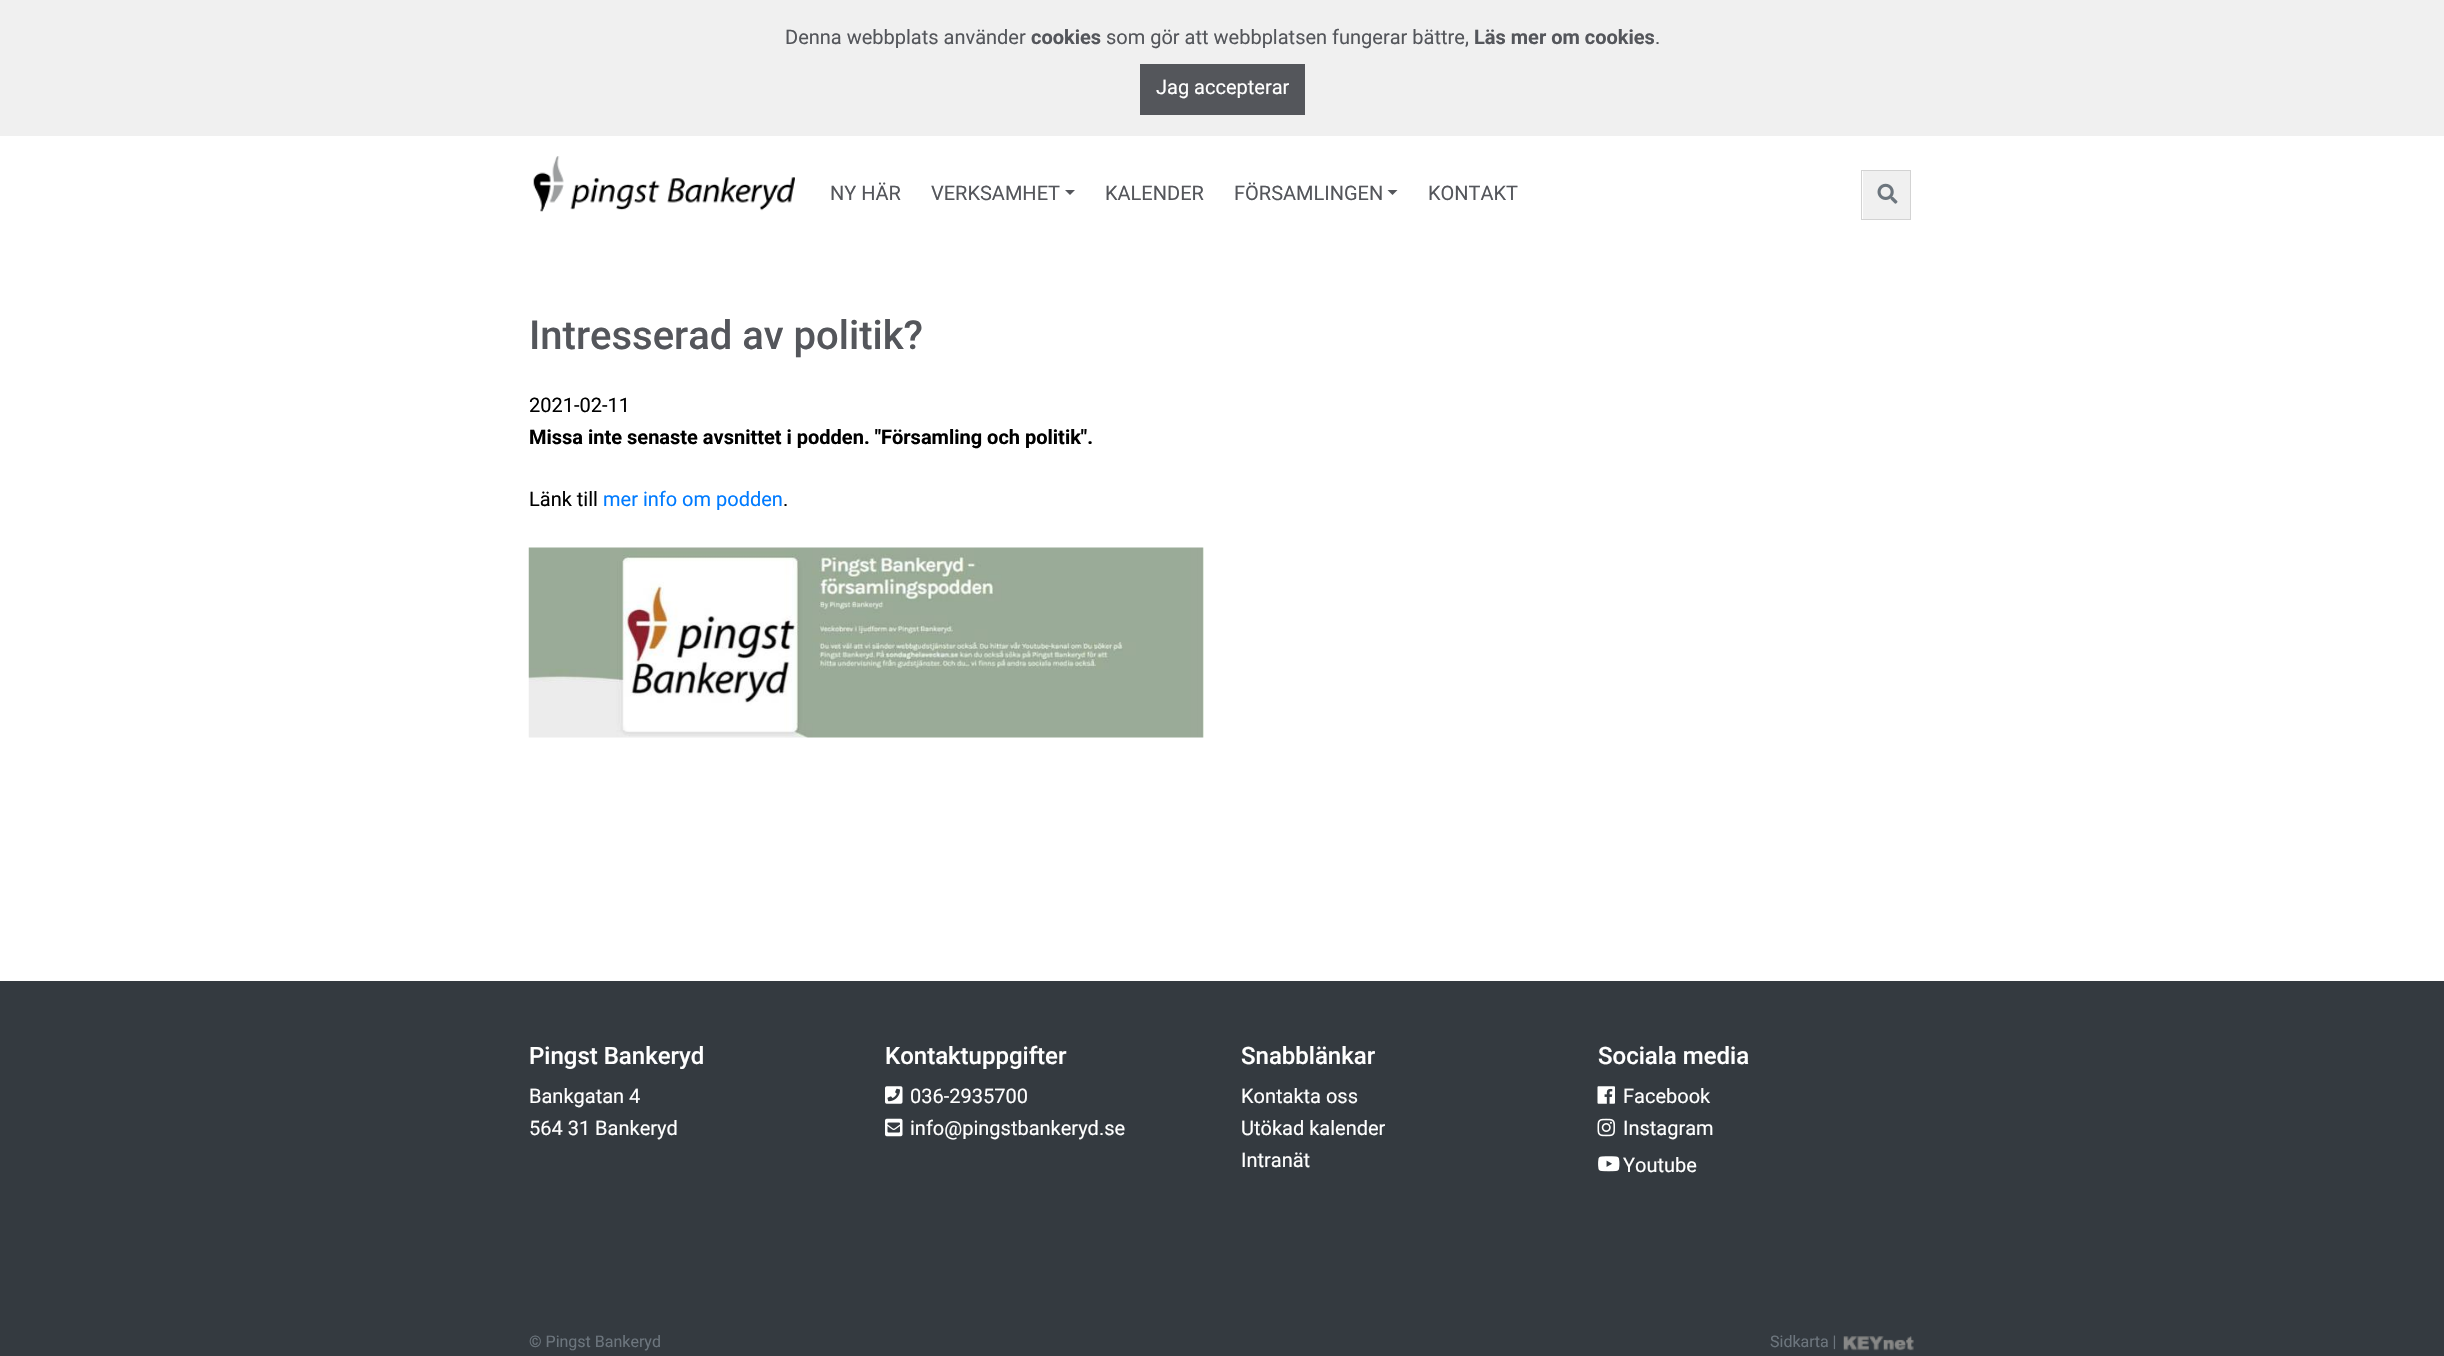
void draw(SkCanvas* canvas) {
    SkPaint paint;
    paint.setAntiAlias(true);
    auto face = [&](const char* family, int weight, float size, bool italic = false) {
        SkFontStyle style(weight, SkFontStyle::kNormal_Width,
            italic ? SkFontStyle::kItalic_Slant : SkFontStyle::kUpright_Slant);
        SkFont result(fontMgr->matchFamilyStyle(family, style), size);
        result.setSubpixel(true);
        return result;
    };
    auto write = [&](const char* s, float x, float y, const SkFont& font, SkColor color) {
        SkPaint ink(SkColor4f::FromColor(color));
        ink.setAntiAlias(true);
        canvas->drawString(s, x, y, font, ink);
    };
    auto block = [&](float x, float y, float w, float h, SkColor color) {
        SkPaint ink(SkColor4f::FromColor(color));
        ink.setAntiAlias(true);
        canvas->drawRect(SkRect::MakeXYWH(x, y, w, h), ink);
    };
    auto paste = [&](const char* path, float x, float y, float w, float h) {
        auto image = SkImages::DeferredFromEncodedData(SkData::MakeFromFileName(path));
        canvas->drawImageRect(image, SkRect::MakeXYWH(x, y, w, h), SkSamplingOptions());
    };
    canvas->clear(SK_ColorWHITE);
    block(0, 0, 2444, 136, SkColorSetRGB(240, 240, 240));
    auto kFont1 = face("Roboto", 400, 20);
    write("Denna webbplats använder", 785, 44, kFont1, SkColorSetRGB(84, 86, 91));
    auto kFont2 = face("Roboto", 700, 20);
    write("cookies", 1031, 44, kFont2, SkColorSetRGB(84, 86, 91));
    write("som gör att webbplatsen fungerar bättre,", 1106, 44, kFont1, SkColorSetRGB(84, 86, 91));
    write("Läs mer om cookies", 1474, 44, kFont2, SkColorSetRGB(84, 86, 91));
    write(".", 1655, 44, kFont1, SkColorSetRGB(84, 86, 91));
    block(1140, 64, 165, 51, SkColorSetRGB(84, 86, 91));
    write("Jag accepterar", 1156, 94, kFont1, SK_ColorWHITE);
    paste("pic1.png", 533, 156, 262, 56);
    write("NY HÄR", 830, 200, kFont1, SkColorSetRGB(84, 86, 91));
    write("VERKSAMHET", 931, 200, kFont1, SkColorSetRGB(84, 86, 91));
    paint.setColor(SkColorSetRGB(84, 86, 91));
    canvas->drawPath(SkPathBuilder().moveTo(1065, 190).lineTo(1075, 190).lineTo(1070, 195).close().detach(), paint);
    write("KALENDER", 1105, 200, kFont1, SkColorSetRGB(84, 86, 91));
    write("FÖRSAMLINGEN", 1234, 200, kFont1, SkColorSetRGB(84, 86, 91));
    canvas->drawPath(SkPathBuilder().moveTo(1387.5f, 190).lineTo(1397.5f, 190).lineTo(1392.5f, 195).close().detach(), paint);
    write("KONTAKT", 1428, 200, kFont1, SkColorSetRGB(84, 86, 91));
    block(1863, 171, 47, 48, SkColorSetRGB(240, 240, 240));
    paint.setStyle(SkPaint::kStroke_Style);
    paint.setStrokeWidth(1);
    paint.setColor(SkColorSetRGB(211, 211, 211));
    canvas->drawRect(SkRect::MakeXYWH(1861.5f, 170.5f, 49, 49), paint);
    paste("pic2.png", 1877, 183, 21, 21);
    auto kFont3 = face("Roboto", 500, 40);
    write("Intresserad av politik?", 529, 349, kFont3, SkColorSetRGB(84, 86, 91));
    write("2021-02-11", 529, 412, kFont1, SK_ColorBLACK);
    write("Missa inte senaste avsnittet i podden. \"Församling och politik\".", 529, 444, kFont2, SK_ColorBLACK);
    write("Länk till", 529, 506, kFont1, SK_ColorBLACK);
    write("mer info om podden", 603, 506, kFont1, SkColorSetRGB(0, 123, 255));
    write(".", 783, 506, kFont1, SK_ColorBLACK);
    paste("pic3.png", 528, 547, 676, 191);
    block(0, 981, 2444, 375, SkColorSetRGB(52, 58, 64));
    auto kFont4 = face("Roboto", 500, 24);
    write("Pingst Bankeryd", 529, 1064, kFont4, SK_ColorWHITE);
    write("Bankgatan 4", 529, 1103, kFont1, SK_ColorWHITE);
    write("564 31 Bankeryd", 529, 1135, kFont1, SK_ColorWHITE);
    write("Kontaktuppgifter", 885, 1064, kFont4, SK_ColorWHITE);
    paste("pic4.png", 885, 1086, 18, 18);
    write("036-2935700", 910, 1103, kFont1, SK_ColorWHITE);
    paste("pic5.png", 885, 1118, 18, 19);
    write("info@pingstbankeryd.se", 910, 1135, kFont1, SK_ColorWHITE);
    write("Snabblänkar", 1241, 1064, kFont4, SK_ColorWHITE);
    write("Kontakta oss", 1241, 1103, kFont1, SK_ColorWHITE);
    write("Utökad kalender", 1241, 1135, kFont1, SK_ColorWHITE);
    write("Intranät", 1241, 1167, kFont1, SK_ColorWHITE);
    write("Sociala media", 1598, 1064, kFont4, SK_ColorWHITE);
    paste("pic6.png", 1597, 1086, 18, 18);
    write("Facebook", 1623, 1103, kFont1, SK_ColorWHITE);
    paste("pic7.png", 1597, 1118, 18, 19);
    write("Instagram", 1623, 1135, kFont1, SK_ColorWHITE);
    paste("pic8.png", 1598, 1156, 22, 16);
    write("Youtube", 1623, 1172, kFont1, SK_ColorWHITE);
    auto kFont5 = face("Roboto", 400, 16);
    write("© Pingst Bankeryd", 529, 1347, kFont5, SkColorSetRGB(108, 117, 125));
    write("Sidkarta |", 1770, 1347, kFont5, SkColorSetRGB(108, 117, 125));
    paste("pic9.png", 1843, 1336, 71, 15);
}
